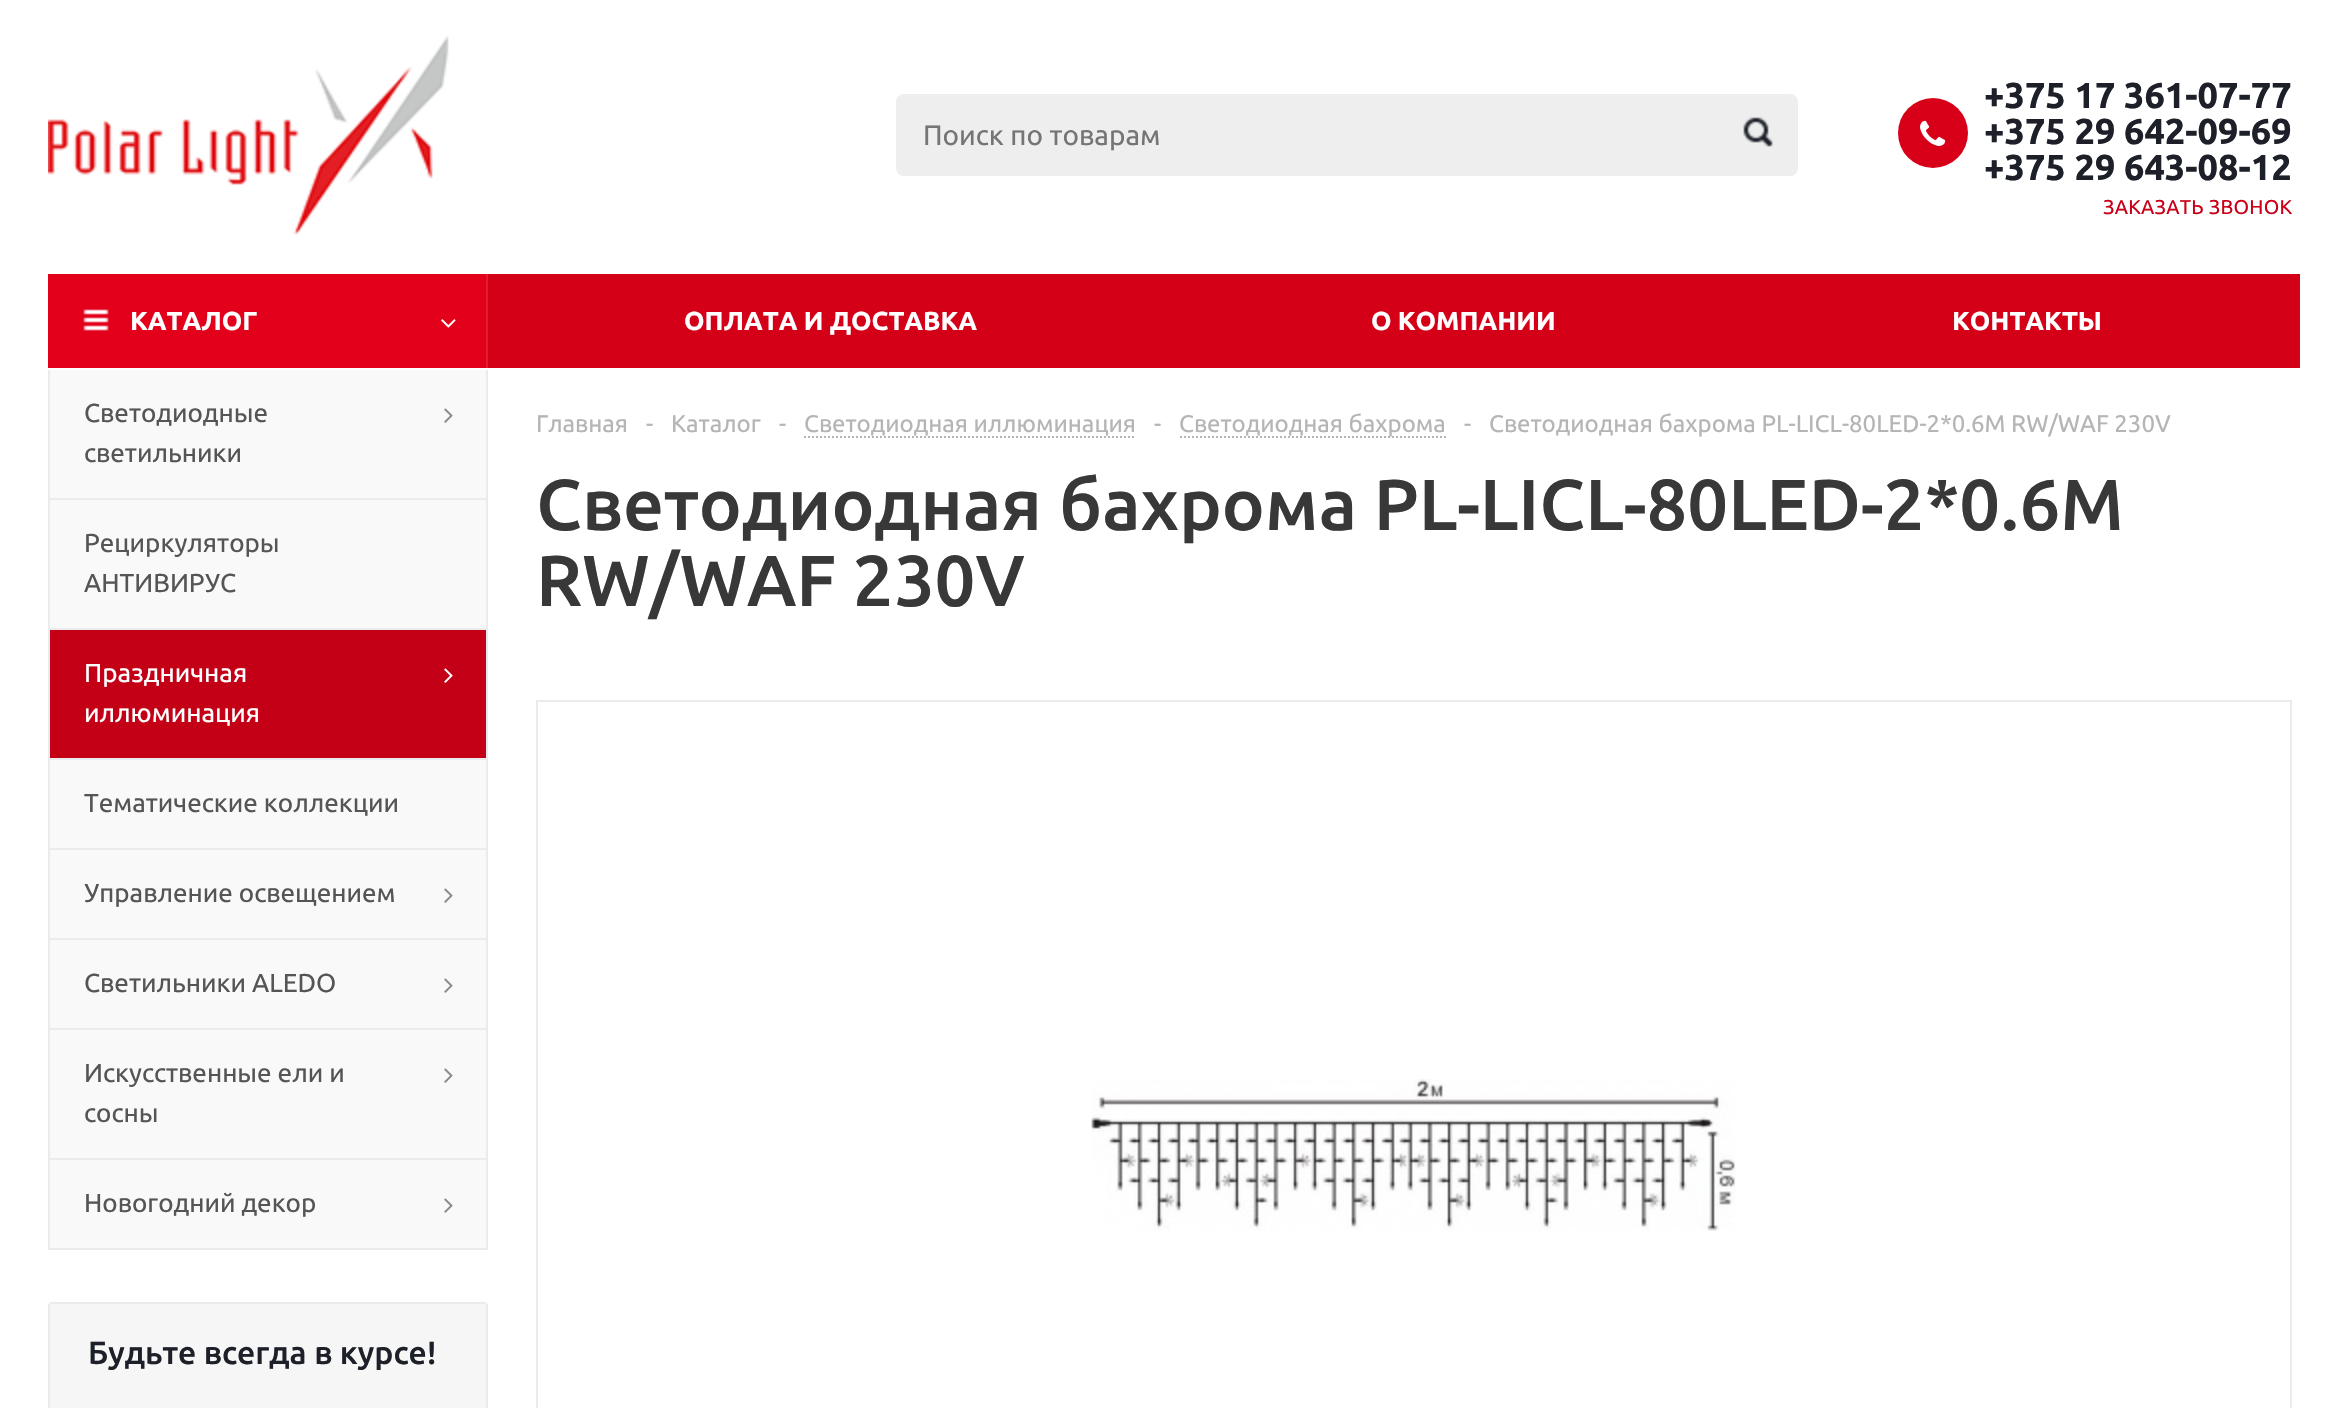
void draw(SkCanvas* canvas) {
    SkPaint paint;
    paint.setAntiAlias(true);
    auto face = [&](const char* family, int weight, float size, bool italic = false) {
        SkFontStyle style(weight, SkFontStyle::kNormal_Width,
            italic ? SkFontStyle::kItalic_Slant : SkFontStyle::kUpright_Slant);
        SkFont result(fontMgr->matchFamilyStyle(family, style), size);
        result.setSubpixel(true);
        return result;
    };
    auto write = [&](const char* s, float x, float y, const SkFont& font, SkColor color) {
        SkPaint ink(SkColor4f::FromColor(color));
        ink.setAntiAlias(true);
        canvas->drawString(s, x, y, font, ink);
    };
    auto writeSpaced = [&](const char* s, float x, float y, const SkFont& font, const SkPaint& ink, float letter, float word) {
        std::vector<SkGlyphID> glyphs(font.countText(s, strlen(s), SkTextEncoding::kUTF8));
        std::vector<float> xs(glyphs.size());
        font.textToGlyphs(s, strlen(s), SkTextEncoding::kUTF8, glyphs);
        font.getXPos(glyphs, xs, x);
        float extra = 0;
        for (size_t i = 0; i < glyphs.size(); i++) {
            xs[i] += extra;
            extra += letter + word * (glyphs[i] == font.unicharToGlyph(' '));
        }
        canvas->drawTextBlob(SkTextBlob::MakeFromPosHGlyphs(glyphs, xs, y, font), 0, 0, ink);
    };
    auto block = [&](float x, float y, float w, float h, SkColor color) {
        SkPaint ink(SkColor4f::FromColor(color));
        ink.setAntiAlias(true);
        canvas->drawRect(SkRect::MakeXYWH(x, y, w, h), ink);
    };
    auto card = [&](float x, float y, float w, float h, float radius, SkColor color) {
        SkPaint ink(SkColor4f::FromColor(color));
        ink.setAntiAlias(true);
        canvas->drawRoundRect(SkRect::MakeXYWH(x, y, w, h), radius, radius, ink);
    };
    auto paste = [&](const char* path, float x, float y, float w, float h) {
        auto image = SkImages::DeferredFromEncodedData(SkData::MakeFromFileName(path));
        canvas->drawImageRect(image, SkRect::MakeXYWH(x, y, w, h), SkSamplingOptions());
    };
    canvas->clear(SK_ColorWHITE);
    paste("pic1.png", 48, 30, 404, 208);
    card(896, 94, 902, 82, 8, SkColorSetRGB(238, 238, 238));
    auto kFont1 = face("Ubuntu", 400, 28);
    write("Поиск по товарам", 923, 145, kFont1, SkColorSetRGB(117, 117, 117));
    paste("pic2.png", 1743, 117, 30, 30);
    paint.setColor(SkColorSetRGB(216, 0, 25));
    canvas->drawCircle(1933, 133, 35, paint);
    paste("pic3.png", 1920, 120, 26, 26);
    auto kFont2 = face("Ubuntu", 700, 36);
    write("+375 17 361-07-77", 1984, 108, kFont2, SkColorSetRGB(29, 32, 41));
    write("+375 29 642-09-69", 1984, 144, kFont2, SkColorSetRGB(29, 32, 41));
    write("+375 29 643-08-12", 1984, 180, kFont2, SkColorSetRGB(29, 32, 41));
    auto kFont3 = face("Ubuntu", 400, 20);
    paint.setColor(SkColorSetRGB(201, 0, 23));
    writeSpaced("ЗАКАЗАТЬ ЗВОНОК", 2103, 214, kFont3, paint, 0.25f, 0);
    block(488, 274, 1812, 94, SkColorSetRGB(211, 0, 24));
    block(48, 274, 438, 94, SkColorSetRGB(226, 0, 26));
    paste("pic4.png", 83, 309, 26, 22);
    auto kFont4 = face("Ubuntu", 700, 26);
    write("КАТАЛОГ", 130, 330, kFont4, SK_ColorWHITE);
    block(486, 274, 2, 94, SkColorSetRGB(229, 26, 49));
    paste("pic5.png", 441, 319, 15, 9);
    write("ОПЛАТА И ДОСТАВКА", 684, 330, kFont4, SK_ColorWHITE);
    write("О КОМПАНИИ", 1371, 330, kFont4, SK_ColorWHITE);
    write("КОНТАКТЫ", 1952, 330, kFont4, SK_ColorWHITE);
    block(50, 370, 436, 128, SkColorSetRGB(249, 249, 249));
    block(486, 370, 2, 128, SkColorSetRGB(234, 235, 236));
    block(48, 370, 2, 128, SkColorSetRGB(234, 235, 236));
    auto kFont5 = face("Ubuntu", 400, 26);
    write("Светодиодные", 84, 422, kFont5, SkColorSetRGB(85, 85, 85));
    paste("pic6.png", 444, 408, 9, 15);
    write("светильники", 84, 462, kFont5, SkColorSetRGB(85, 85, 85));
    block(50, 500, 436, 128, SkColorSetRGB(249, 249, 249));
    block(48, 498, 440, 2, SkColorSetRGB(234, 235, 236));
    block(486, 498, 2, 130, SkColorSetRGB(234, 235, 236));
    block(48, 498, 2, 130, SkColorSetRGB(234, 235, 236));
    write("Рециркуляторы", 84, 552, kFont5, SkColorSetRGB(85, 85, 85));
    write("АНТИВИРУС", 84, 592, kFont5, SkColorSetRGB(85, 85, 85));
    block(50, 630, 436, 128, SkColorSetRGB(195, 0, 22));
    block(48, 628, 440, 2, SkColorSetRGB(234, 235, 236));
    block(486, 628, 2, 130, SkColorSetRGB(234, 235, 236));
    block(48, 628, 2, 130, SkColorSetRGB(234, 235, 236));
    write("Праздничная", 84, 682, kFont5, SK_ColorWHITE);
    paste("pic7.png", 444, 668, 9, 15);
    write("иллюминация", 84, 722, kFont5, SK_ColorWHITE);
    block(50, 760, 436, 88, SkColorSetRGB(249, 249, 249));
    block(48, 758, 440, 2, SkColorSetRGB(234, 235, 236));
    block(486, 758, 2, 90, SkColorSetRGB(234, 235, 236));
    block(48, 758, 2, 90, SkColorSetRGB(234, 235, 236));
    write("Тематические коллекции", 84, 812, kFont5, SkColorSetRGB(85, 85, 85));
    block(50, 850, 436, 88, SkColorSetRGB(249, 249, 249));
    block(48, 848, 440, 2, SkColorSetRGB(234, 235, 236));
    block(486, 848, 2, 90, SkColorSetRGB(234, 235, 236));
    block(48, 848, 2, 90, SkColorSetRGB(234, 235, 236));
    write("Управление освещением", 84, 902, kFont5, SkColorSetRGB(85, 85, 85));
    paste("pic6.png", 444, 888, 9, 15);
    block(50, 940, 436, 88, SkColorSetRGB(249, 249, 249));
    block(48, 938, 440, 2, SkColorSetRGB(234, 235, 236));
    block(486, 938, 2, 90, SkColorSetRGB(234, 235, 236));
    block(48, 938, 2, 90, SkColorSetRGB(234, 235, 236));
    write("Cветильники ALEDO", 84, 992, kFont5, SkColorSetRGB(85, 85, 85));
    paste("pic6.png", 444, 978, 9, 15);
    block(50, 1030, 436, 128, SkColorSetRGB(249, 249, 249));
    block(48, 1028, 440, 2, SkColorSetRGB(234, 235, 236));
    block(486, 1028, 2, 130, SkColorSetRGB(234, 235, 236));
    block(48, 1028, 2, 130, SkColorSetRGB(234, 235, 236));
    write("Искусственные ели и", 84, 1082, kFont5, SkColorSetRGB(85, 85, 85));
    paste("pic6.png", 444, 1068, 9, 15);
    write("сосны", 84, 1122, kFont5, SkColorSetRGB(85, 85, 85));
    paint.setColor(SkColorSetRGB(249, 249, 249));
    canvas->drawRect(SkRect::MakeXYWH(49, 1159, 438, 90), paint);
    paint.setStyle(SkPaint::kStroke_Style);
    paint.setStrokeWidth(2);
    paint.setColor(SkColorSetRGB(234, 235, 236));
    canvas->drawRect(SkRect::MakeXYWH(49, 1159, 438, 90), paint);
    write("Новогодний декор", 84, 1212, kFont5, SkColorSetRGB(85, 85, 85));
    paste("pic6.png", 444, 1198, 9, 15);
    paint.setStyle(SkPaint::kFill_Style);
    paint.setColor(SkColorSetRGB(246, 246, 247));
    canvas->drawPath(SkPathBuilder().moveTo(52, 1303).lineTo(484, 1303).cubicTo(485.5f, 1303, 487, 1304.5f, 487, 1306).lineTo(487, 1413).lineTo(49, 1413).lineTo(49, 1306).cubicTo(49, 1304.5f, 50.5f, 1303, 52, 1303).close().detach(), paint);
    paint.setStyle(SkPaint::kStroke_Style);
    paint.setColor(SkColorSetRGB(234, 235, 236));
    canvas->drawPath(SkPathBuilder().moveTo(52, 1303).lineTo(484, 1303).cubicTo(485.5f, 1303, 487, 1304.5f, 487, 1306).lineTo(487, 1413).lineTo(49, 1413).lineTo(49, 1306).cubicTo(49, 1304.5f, 50.5f, 1303, 52, 1303).close().detach(), paint);
    auto kFont6 = face("Ubuntu", 500, 32);
    write("Будьте всегда в курсе!", 88, 1364, kFont6, SkColorSetRGB(29, 32, 41));
    auto kFont7 = face("Ubuntu", 400, 24);
    write("Главная", 536, 432, kFont7, SkColorSetRGB(182, 181, 181));
    write("-", 646, 432, kFont7, SkColorSetRGB(182, 181, 181));
    write("Каталог", 671, 432, kFont7, SkColorSetRGB(182, 181, 181));
    write("-", 779, 432, kFont7, SkColorSetRGB(182, 181, 181));
    write("Светодиодная иллюминация", 804, 432, kFont7, SkColorSetRGB(182, 181, 181));
    paint.setColor(SkColorSetRGB(180, 180, 180));
    paint.setPathEffect(SkDashPathEffect::Make({{2, 2}}, 0));
    canvas->drawPath(SkPathBuilder().moveTo(804, 437).lineTo(1136, 437).detach(), paint);
    paint.setPathEffect(nullptr);
    write("-", 1154, 432, kFont7, SkColorSetRGB(182, 181, 181));
    paint.setPathEffect(SkDashPathEffect::Make({{2, 2}}, 0));
    canvas->drawPath(SkPathBuilder().moveTo(1180, 437).lineTo(1446, 437).detach(), paint);
    paint.setPathEffect(nullptr);
    write("Светодиодная бахрома", 1179, 432, kFont7, SkColorSetRGB(182, 181, 181));
    write("-", 1464, 432, kFont7, SkColorSetRGB(182, 181, 181));
    write("Светодиодная бахрома PL-LICL-80LED-2*0.6M RW/WAF 230V", 1489, 432, kFont7, SkColorSetRGB(182, 181, 181));
    auto kFont8 = face("Ubuntu", 500, 72);
    write("Светодиодная бахрома PL-LICL-80LED-2*0.6M", 536, 530, kFont8, SkColorSetRGB(56, 56, 56));
    write("RW/WAF 230V", 536, 606, kFont8, SkColorSetRGB(56, 56, 56));
    paint.setColor(SkColorSetRGB(234, 235, 236));
    canvas->drawRect(SkRect::MakeXYWH(537, 701, 1754, 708), paint);
    paste("pic8.png", 1091, 1079, 645, 152);
}
